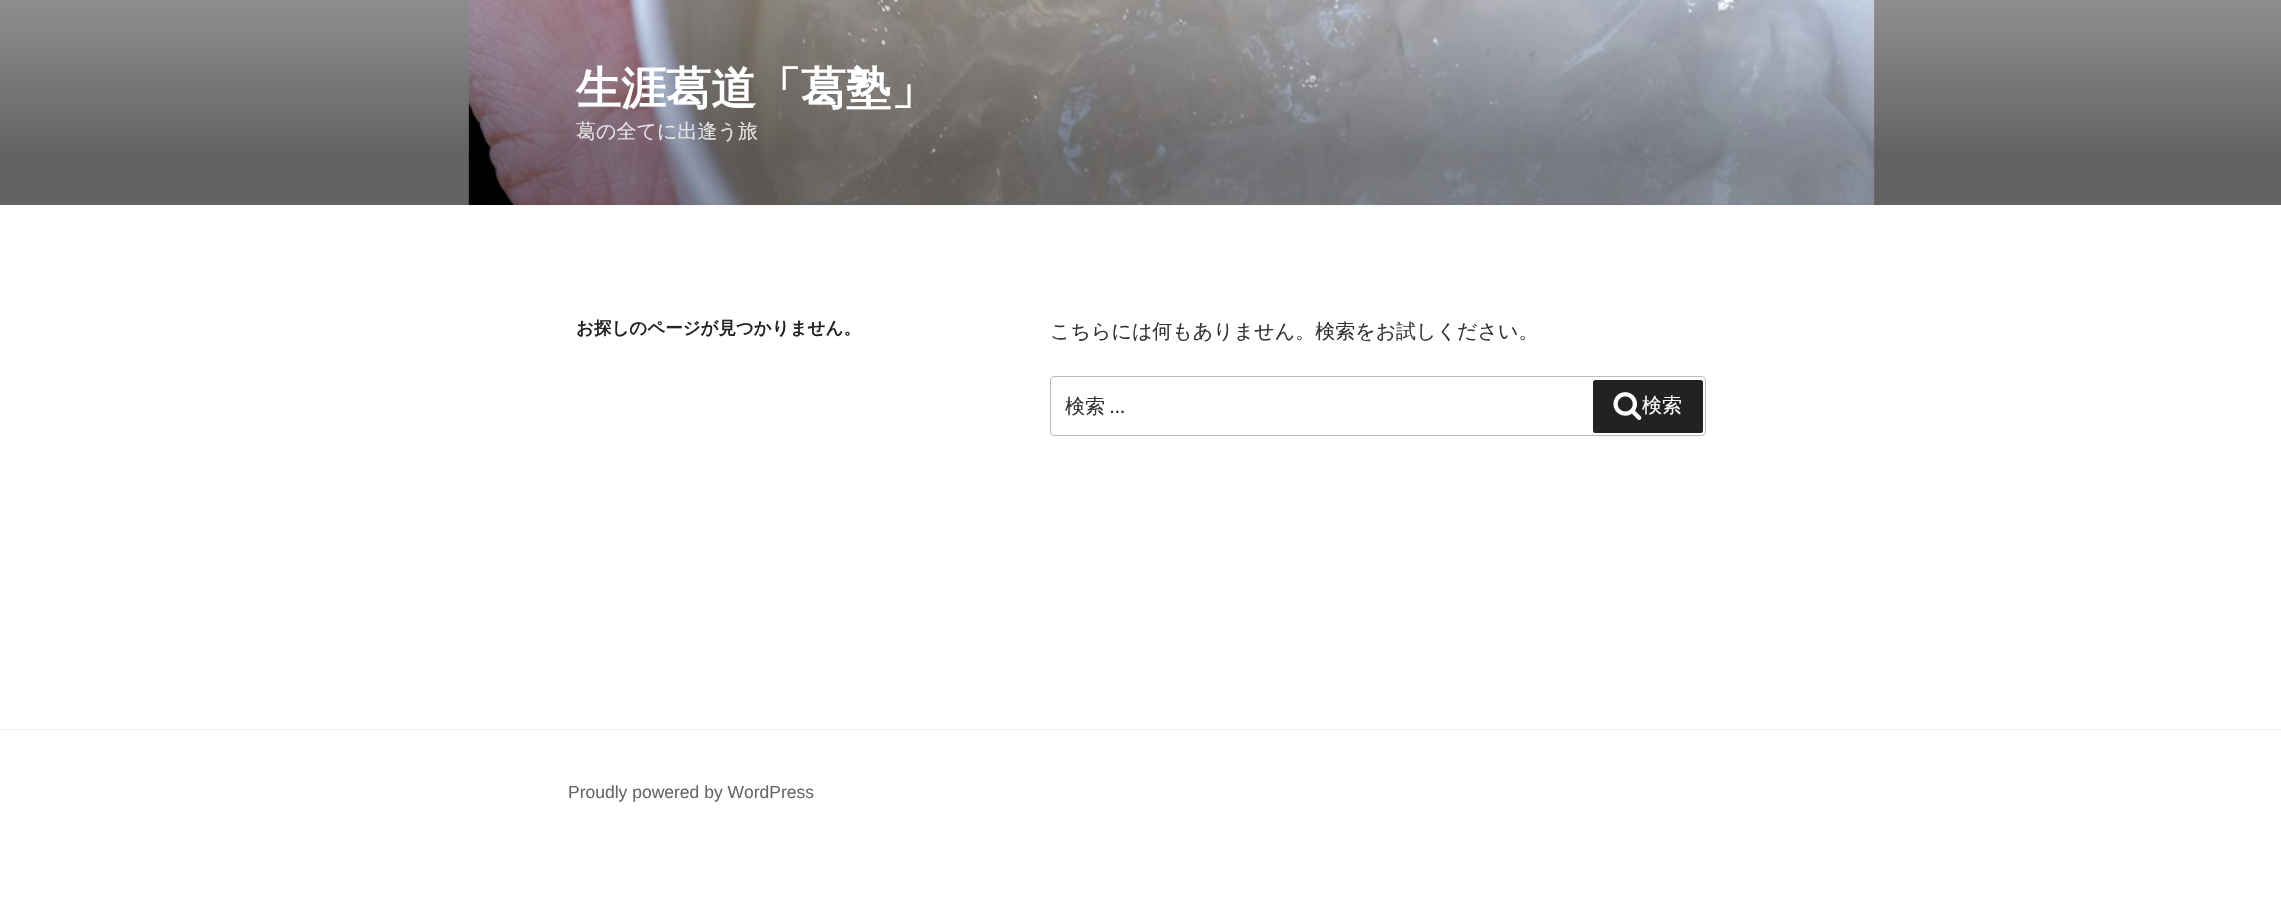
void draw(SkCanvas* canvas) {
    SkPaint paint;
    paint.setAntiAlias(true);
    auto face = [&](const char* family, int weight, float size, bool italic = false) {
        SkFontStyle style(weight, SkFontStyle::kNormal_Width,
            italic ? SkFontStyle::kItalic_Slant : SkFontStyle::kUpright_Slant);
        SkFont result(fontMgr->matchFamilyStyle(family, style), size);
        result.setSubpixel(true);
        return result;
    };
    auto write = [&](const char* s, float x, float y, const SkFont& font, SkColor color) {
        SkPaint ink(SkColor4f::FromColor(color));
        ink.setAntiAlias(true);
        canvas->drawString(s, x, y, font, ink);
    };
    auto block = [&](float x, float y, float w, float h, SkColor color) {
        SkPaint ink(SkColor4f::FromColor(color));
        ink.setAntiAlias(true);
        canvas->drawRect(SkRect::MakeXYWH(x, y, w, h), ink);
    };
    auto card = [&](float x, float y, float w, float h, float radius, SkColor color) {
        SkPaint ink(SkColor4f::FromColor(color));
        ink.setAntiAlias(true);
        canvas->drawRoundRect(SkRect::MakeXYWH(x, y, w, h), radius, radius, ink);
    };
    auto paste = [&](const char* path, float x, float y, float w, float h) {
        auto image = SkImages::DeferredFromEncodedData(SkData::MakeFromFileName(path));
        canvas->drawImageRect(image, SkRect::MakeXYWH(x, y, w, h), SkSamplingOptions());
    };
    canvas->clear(SK_ColorWHITE);
    block(0, 205, 2281, 1, SkColorSetRGB(250, 250, 250));
    paste("pic1.png", 0, 0, 2281, 205);
    auto kFont1 = face("WenQuanYi Zen Hei", 700, 45);
    write("生涯葛道「葛塾」", 576, 104, kFont1, SK_ColorWHITE);
    auto kFont2 = face("WenQuanYi Zen Hei", 500, 20);
    write("葛の全てに出逢う旅", 576, 138, kFont2, SkColorSetRGB(227, 225, 227));
    auto kFont3 = face("WenQuanYi Zen Hei", 700, 17.5f);
    write("お探しのページが見つかりません。", 576, 334, kFont3, SkColorSetRGB(34, 34, 34));
    write("こちらには何もありません。検索をお試しください。", 1050, 338, kFont2, SkColorSetRGB(51, 51, 51));
    paint.setStyle(SkPaint::kStroke_Style);
    paint.setStrokeWidth(1);
    paint.setColor(SkColorSetRGB(187, 187, 187));
    canvas->drawRoundRect(SkRect::MakeXYWH(1050.5f, 376.5f, 655, 59), 3.5f, 3.5f, paint);
    write("検索", 1065, 413, kFont2, SkColorSetRGB(51, 51, 51));
    auto kFont4 = face("Libre Franklin", 400, 20);
    write("…", 1110, 413, kFont4, SkColorSetRGB(51, 51, 51));
    card(1593, 380, 110, 53, 2.5f, SkColorSetRGB(34, 34, 34));
    paste("pic2.png", 1613, 392, 29, 28);
    write("検索", 1642, 412, kFont2, SK_ColorWHITE);
    block(0, 729, 2281, 1, SkColorSetRGB(238, 238, 238));
    auto kFont5 = face("Liberation Sans", 400, 17.5f);
    write("Proudly powered by WordPress", 568, 798, kFont5, SkColorSetRGB(102, 102, 102));
}
